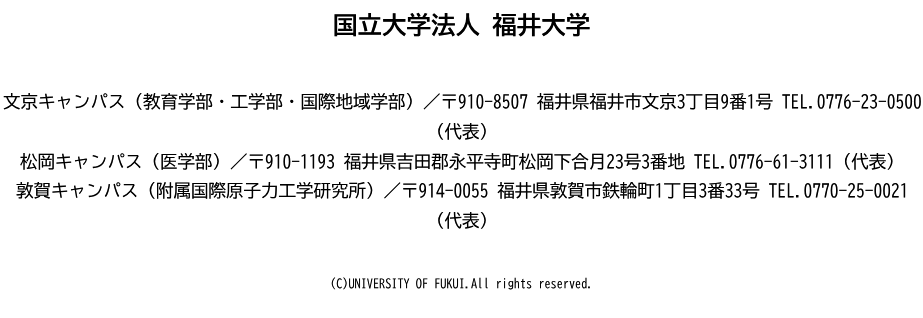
void draw(SkCanvas* canvas) {
    SkPaint paint;
    paint.setAntiAlias(true);
    auto face = [&](const char* family, int weight, float size, bool italic = false) {
        SkFontStyle style(weight, SkFontStyle::kNormal_Width,
            italic ? SkFontStyle::kItalic_Slant : SkFontStyle::kUpright_Slant);
        SkFont result(fontMgr->matchFamilyStyle(family, style), size);
        result.setSubpixel(true);
        return result;
    };
    auto write = [&](const char* s, float x, float y, const SkFont& font, SkColor color) {
        SkPaint ink(SkColor4f::FromColor(color));
        ink.setAntiAlias(true);
        canvas->drawString(s, x, y, font, ink);
    };
    canvas->clear(SK_ColorWHITE);
    auto kFont1 = face("BIZ UDGothic", 700, 24.5f);
    write("国立大学法人 福井大学", 333, 34, kFont1, SK_ColorBLACK);
    auto kFont2 = face("BIZ UDGothic", 400, 17.5f);
    write("文京キャンパス（教育学部・工学部・国際地域学部）／〒910-8507 福井県福井市文京3丁目9番1号 TEL.0776-23-0500", 3, 108, kFont2, SK_ColorBLACK);
    write("（代表）", 427, 138, kFont2, SK_ColorBLACK);
    write("松岡キャンパス（医学部）／〒910-1193 福井県吉田郡永平寺町松岡下合月23号3番地 TEL.0776-61-3111（代表）", 20, 168, kFont2, SK_ColorBLACK);
    write("敦賀キャンパス（附属国際原子力工学研究所）／〒914-0055 福井県敦賀市鉄輪町1丁目3番33号 TEL.0770-25-0021", 16, 197, kFont2, SK_ColorBLACK);
    write("（代表）", 427, 227, kFont2, SK_ColorBLACK);
    auto kFont3 = face("BIZ UDGothic", 400, 12.25f);
    write("(C)UNIVERSITY OF FUKUI.All rights reserved.", 330, 288, kFont3, SK_ColorBLACK);
}
